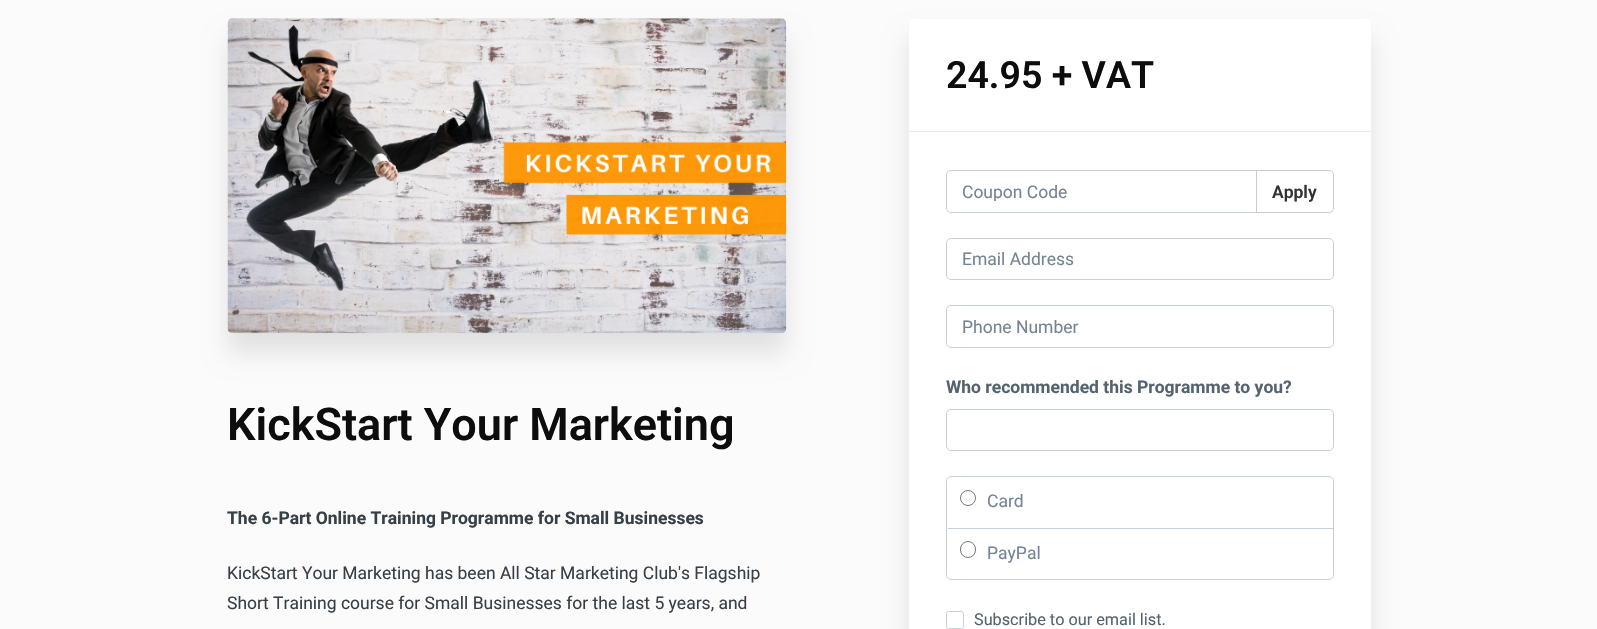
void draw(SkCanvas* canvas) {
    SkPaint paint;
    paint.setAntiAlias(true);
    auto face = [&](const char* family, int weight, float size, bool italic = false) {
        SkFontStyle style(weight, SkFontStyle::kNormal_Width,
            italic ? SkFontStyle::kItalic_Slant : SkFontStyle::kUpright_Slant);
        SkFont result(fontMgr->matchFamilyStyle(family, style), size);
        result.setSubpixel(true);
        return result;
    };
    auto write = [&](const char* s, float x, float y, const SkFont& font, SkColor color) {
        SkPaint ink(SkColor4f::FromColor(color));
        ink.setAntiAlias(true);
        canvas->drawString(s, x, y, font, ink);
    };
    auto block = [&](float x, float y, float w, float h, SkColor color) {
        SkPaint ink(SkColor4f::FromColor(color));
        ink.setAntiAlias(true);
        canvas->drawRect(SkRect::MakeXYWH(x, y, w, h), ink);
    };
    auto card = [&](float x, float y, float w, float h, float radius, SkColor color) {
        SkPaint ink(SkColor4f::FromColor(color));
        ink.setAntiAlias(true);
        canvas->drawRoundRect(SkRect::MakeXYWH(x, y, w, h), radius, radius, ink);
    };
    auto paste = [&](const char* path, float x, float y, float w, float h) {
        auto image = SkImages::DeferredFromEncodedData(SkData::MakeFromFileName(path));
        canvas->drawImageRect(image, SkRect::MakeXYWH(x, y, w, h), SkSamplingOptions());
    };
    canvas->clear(SkColorSetRGB(251, 251, 251));
    paint.setColor(SkColorSetARGB(26, 0, 0, 0));
    paint.setMaskFilter(SkMaskFilter::MakeBlur(kNormal_SkBlurStyle, 12.5f));
    canvas->drawRoundRect(SkRect::MakeXYWH(228, 38, 558, 315), 5, 5, paint);
    paint.setMaskFilter(nullptr);
    paste("pic1.png", 227, 18, 560, 316);
    auto kFont1 = face("Roboto", 600, 45);
    write("KickStart Your Marketing", 227, 440, kFont1, SkColorSetRGB(13, 13, 13));
    auto kFont2 = face("Roboto", 700, 17.5f);
    write("The 6-Part Online Training Programme for Small Businesses", 227, 524, kFont2, SkColorSetRGB(55, 63, 71));
    auto kFont3 = face("Roboto", 400, 17.5f);
    write("KickStart Your Marketing has been All Star Marketing Club's Flagship", 227, 579, kFont3, SkColorSetRGB(55, 63, 71));
    write("Short Training course for Small Businesses for the last 5 years, and", 227, 609, kFont3, SkColorSetRGB(55, 63, 71));
    paint.setMaskFilter(SkMaskFilter::MakeBlur(kNormal_SkBlurStyle, 12.5f));
    canvas->drawRoundRect(SkRect::MakeXYWH(909, 38, 462, 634), 5, 5, paint);
    paint.setMaskFilter(nullptr);
    card(909, 19, 462, 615, 5, SK_ColorWHITE);
    block(909, 131, 462, 1, SkColorSetRGB(229, 233, 233));
    auto kFont4 = face("Roboto", 600, 37.5f);
    write("24.95 + VAT", 946, 88, kFont4, SkColorSetRGB(13, 13, 13));
    paint.setStyle(SkPaint::kStroke_Style);
    paint.setStrokeWidth(1);
    paint.setColor(SkColorSetRGB(199, 207, 216));
    canvas->drawPath(SkPathBuilder().moveTo(951, 170.5f).lineTo(1257.5f, 170.5f).lineTo(1257.5f, 212.5f).lineTo(951, 212.5f).cubicTo(948.5f, 212.5f, 946.5f, 210.5f, 946.5f, 208).lineTo(946.5f, 175).cubicTo(946.5f, 172.5f, 948.5f, 170.5f, 951, 170.5f).close().detach(), paint);
    canvas->save();
    canvas->clipRect(SkRect::MakeXYWH(963, 181, 278, 20));
    write("Coupon Code", 962, 198, kFont3, SkColorSetRGB(116, 132, 147));
    canvas->restore();
    paint.setStyle(SkPaint::kFill_Style);
    paint.setColor(SK_ColorWHITE);
    canvas->drawPath(SkPathBuilder().moveTo(1256.5f, 170.5f).lineTo(1329, 170.5f).cubicTo(1331.5f, 170.5f, 1333.5f, 172.5f, 1333.5f, 175).lineTo(1333.5f, 208).cubicTo(1333.5f, 210.5f, 1331.5f, 212.5f, 1329, 212.5f).lineTo(1256.5f, 212.5f).close().detach(), paint);
    paint.setStyle(SkPaint::kStroke_Style);
    paint.setColor(SkColorSetRGB(204, 204, 204));
    canvas->drawPath(SkPathBuilder().moveTo(1256.5f, 170.5f).lineTo(1329, 170.5f).cubicTo(1331.5f, 170.5f, 1333.5f, 172.5f, 1333.5f, 175).lineTo(1333.5f, 208).cubicTo(1333.5f, 210.5f, 1331.5f, 212.5f, 1329, 212.5f).lineTo(1256.5f, 212.5f).close().detach(), paint);
    auto kFont5 = face("Roboto", 600, 17.5f);
    write("Apply", 1272, 198, kFont5, SkColorSetRGB(51, 51, 51));
    paint.setColor(SkColorSetRGB(199, 207, 216));
    canvas->drawRoundRect(SkRect::MakeXYWH(946.5f, 238.5f, 387, 41), 4.5f, 4.5f, paint);
    write("Email Address", 962, 265, kFont3, SkColorSetRGB(116, 132, 147));
    canvas->drawRoundRect(SkRect::MakeXYWH(946.5f, 305.5f, 387, 42), 4.5f, 4.5f, paint);
    write("Phone Number", 962, 333, kFont3, SkColorSetRGB(116, 132, 147));
    write("Who recommended this Programme to you?", 946, 393, kFont2, SkColorSetRGB(85, 99, 112));
    canvas->drawRoundRect(SkRect::MakeXYWH(946.5f, 409.5f, 387, 41), 4.5f, 4.5f, paint);
    canvas->drawRoundRect(SkRect::MakeXYWH(946.5f, 476.5f, 387, 103), 4.5f, 4.5f, paint);
    block(948, 528, 385, 1, SkColorSetRGB(199, 207, 216));
    paint.setColor(SkColorSetRGB(118, 118, 118));
    canvas->drawCircle(968, 498, 7.5f, paint);
    write("Card", 987, 507, kFont3, SkColorSetRGB(116, 132, 147));
    canvas->drawRoundRect(SkRect::MakeXYWH(960.5f, 541.5f, 15, 16), 7.5f, 7.5f, paint);
    write("PayPal", 987, 559, kFont3, SkColorSetRGB(116, 132, 147));
    paint.setColor(SkColorSetRGB(199, 207, 216));
    canvas->drawRoundRect(SkRect::MakeXYWH(946.5f, 611.5f, 17, 17), 2, 2, paint);
    auto kFont6 = face("Roboto", 400, 16.25f);
    write("Subscribe to our email list.", 974, 625, kFont6, SkColorSetRGB(85, 99, 112));
}
